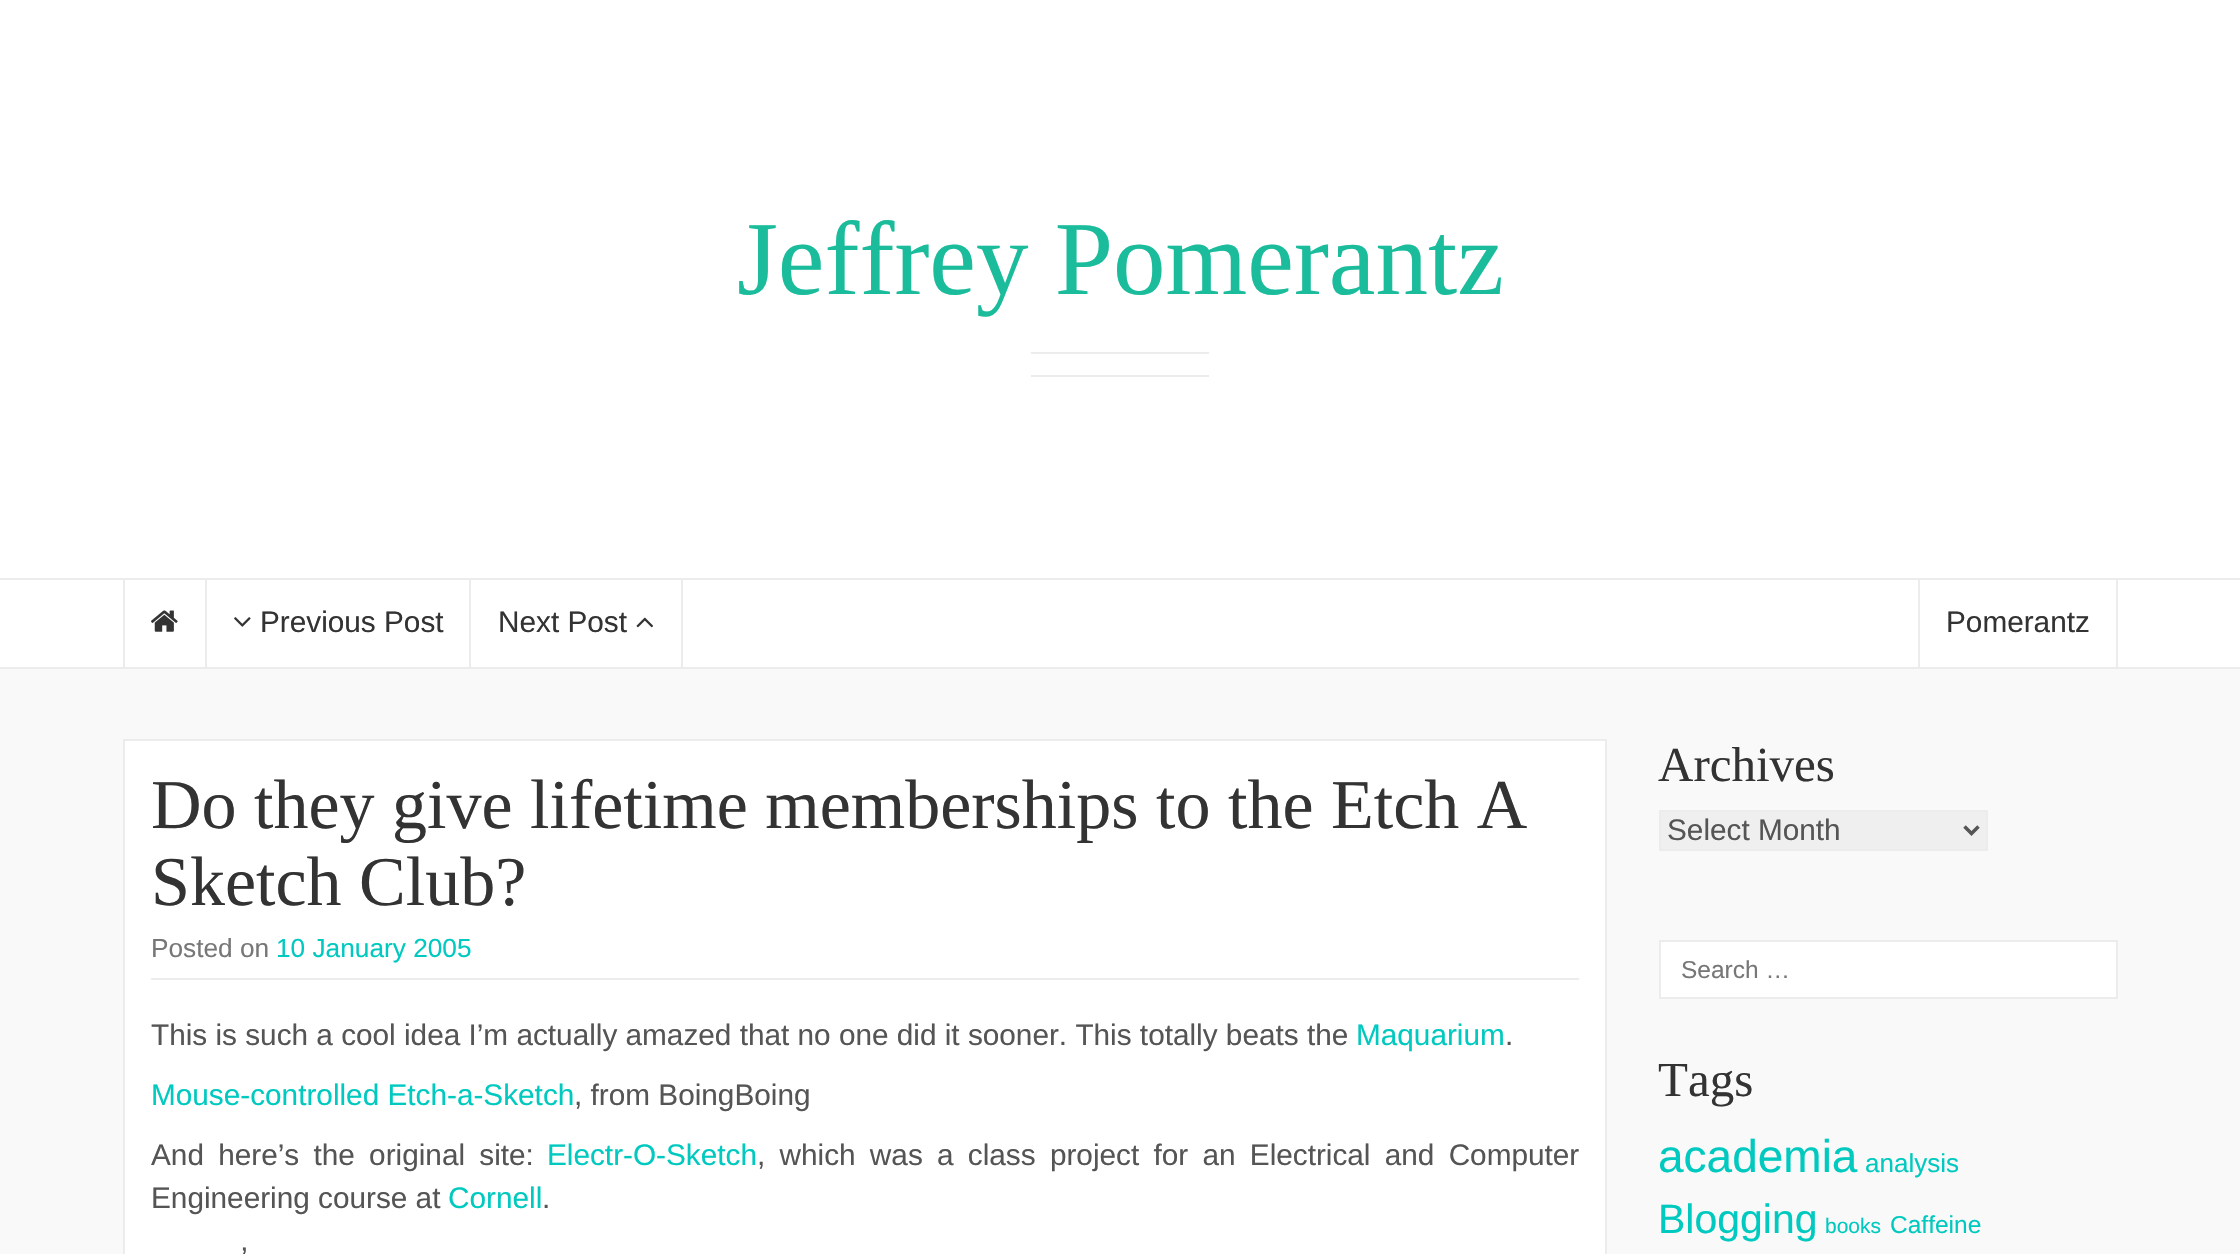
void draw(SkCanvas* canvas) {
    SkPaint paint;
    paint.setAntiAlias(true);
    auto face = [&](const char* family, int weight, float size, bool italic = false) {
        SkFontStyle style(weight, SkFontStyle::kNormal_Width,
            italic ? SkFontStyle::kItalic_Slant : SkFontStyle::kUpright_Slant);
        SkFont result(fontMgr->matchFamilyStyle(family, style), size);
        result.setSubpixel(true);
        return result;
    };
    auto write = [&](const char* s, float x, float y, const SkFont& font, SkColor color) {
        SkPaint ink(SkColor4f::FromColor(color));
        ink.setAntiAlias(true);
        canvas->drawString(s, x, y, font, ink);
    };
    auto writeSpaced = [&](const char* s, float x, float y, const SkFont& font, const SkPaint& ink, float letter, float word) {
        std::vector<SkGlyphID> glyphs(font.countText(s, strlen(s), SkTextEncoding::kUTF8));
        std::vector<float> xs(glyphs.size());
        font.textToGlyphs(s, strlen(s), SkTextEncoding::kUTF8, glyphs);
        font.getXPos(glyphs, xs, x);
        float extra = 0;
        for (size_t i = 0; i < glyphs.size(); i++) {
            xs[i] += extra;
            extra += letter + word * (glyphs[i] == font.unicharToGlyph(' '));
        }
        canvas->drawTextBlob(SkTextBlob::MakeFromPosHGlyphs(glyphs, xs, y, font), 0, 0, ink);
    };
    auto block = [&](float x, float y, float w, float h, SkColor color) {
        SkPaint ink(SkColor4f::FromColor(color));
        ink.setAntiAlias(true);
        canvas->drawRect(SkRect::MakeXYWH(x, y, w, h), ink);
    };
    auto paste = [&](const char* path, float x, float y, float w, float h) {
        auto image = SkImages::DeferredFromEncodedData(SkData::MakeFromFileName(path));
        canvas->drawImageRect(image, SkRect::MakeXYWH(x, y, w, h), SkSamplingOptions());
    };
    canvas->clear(SkColorSetRGB(249, 249, 249));
    block(0, 0, 2240, 667, SK_ColorWHITE);
    auto kFont1 = face("Liberation Serif", 400, 105);
    write("Jeffrey Pomerantz", 737, 294, kFont1, SkColorSetRGB(26, 188, 156));
    block(1031, 352, 178, 2, SkColorSetRGB(236, 236, 236));
    block(1031, 375, 178, 2, SkColorSetRGB(236, 236, 236));
    block(0, 578, 2240, 2, SkColorSetRGB(236, 236, 236));
    block(0, 667, 2240, 2, SkColorSetRGB(236, 236, 236));
    block(123, 579, 2, 88, SkColorSetRGB(236, 236, 236));
    paste("pic1.png", 151, 610, 27, 22);
    block(205, 579, 2, 88, SkColorSetRGB(236, 236, 236));
    paste("pic2.png", 234, 617, 17, 10);
    auto kFont2 = face("Liberation Sans", 400, 29.75f);
    write("Previous Post", 260, 632, kFont2, SkColorSetRGB(51, 51, 51));
    block(681, 579, 2, 88, SkColorSetRGB(236, 236, 236));
    block(469, 579, 2, 88, SkColorSetRGB(236, 236, 236));
    write("Next Post", 498, 632, kFont2, SkColorSetRGB(51, 51, 51));
    paste("pic3.png", 636, 617, 17, 11);
    block(2116, 579, 2, 88, SkColorSetRGB(236, 236, 236));
    block(1918, 579, 2, 88, SkColorSetRGB(236, 236, 236));
    write("Pomerantz", 1946, 632, kFont2, SkColorSetRGB(51, 51, 51));
    paint.setColor(SK_ColorWHITE);
    canvas->drawRect(SkRect::MakeXYWH(124, 740, 1482, 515), paint);
    paint.setStyle(SkPaint::kStroke_Style);
    paint.setStrokeWidth(2);
    paint.setColor(SkColorSetRGB(236, 236, 236));
    canvas->drawRect(SkRect::MakeXYWH(124, 740, 1482, 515), paint);
    auto kFont3 = face("Liberation Serif", 400, 70);
    write("Do they give lifetime memberships to the Etch A", 151, 828, kFont3, SkColorSetRGB(51, 51, 51));
    write("Sketch Club?", 151, 905, kFont3, SkColorSetRGB(51, 51, 51));
    block(151, 978, 1428, 2, SkColorSetRGB(236, 236, 236));
    auto kFont4 = face("Liberation Sans", 400, 26.25f);
    write("Posted on", 151, 957, kFont4, SkColorSetRGB(119, 119, 119));
    write("10 January 2005", 276, 957, kFont4, SkColorSetRGB(0, 201, 191));
    write("This is such a cool idea I’m actually amazed that no one did it sooner. This totally beats the", 151, 1045, kFont2, SkColorSetRGB(85, 85, 85));
    write("Maquarium", 1356, 1045, kFont2, SkColorSetRGB(0, 201, 191));
    write(".", 1505, 1045, kFont2, SkColorSetRGB(85, 85, 85));
    write("Mouse-controlled Etch-a-Sketch", 151, 1105, kFont2, SkColorSetRGB(0, 201, 191));
    write(", from BoingBoing", 574, 1105, kFont2, SkColorSetRGB(85, 85, 85));
    paint.setStyle(SkPaint::kFill_Style);
    paint.setColor(SkColorSetRGB(85, 85, 85));
    writeSpaced("And here’s the original site:", 151, 1165, kFont2, paint, 0, 6);
    write("Electr-O-Sketch", 547, 1165, kFont2, SkColorSetRGB(0, 201, 191));
    writeSpaced(", which was a class project for an Electrical and Computer", 757, 1165, kFont2, paint, 0, 6);
    write("Engineering course at", 151, 1208, kFont2, SkColorSetRGB(85, 85, 85));
    write("Cornell", 448, 1208, kFont2, SkColorSetRGB(0, 201, 191));
    write(".", 542, 1208, kFont2, SkColorSetRGB(85, 85, 85));
    write("’", 241, 1268, kFont2, SkColorSetRGB(85, 85, 85));
    auto kFont5 = face("Liberation Serif", 400, 49);
    write("Archives", 1658, 781, kFont5, SkColorSetRGB(51, 51, 51));
    paint.setColor(SkColorSetRGB(239, 239, 239));
    canvas->drawRect(SkRect::MakeXYWH(1660, 811, 327, 39), paint);
    paint.setStyle(SkPaint::kStroke_Style);
    paint.setColor(SkColorSetRGB(236, 236, 236));
    canvas->drawRect(SkRect::MakeXYWH(1660, 811, 327, 39), paint);
    paint.setStrokeWidth(3.5f);
    paint.setColor(SkColorSetRGB(85, 85, 85));
    canvas->drawPath(SkPathBuilder().moveTo(1964.5f, 826.5f).lineTo(1971.5f, 833.5f).lineTo(1978.5f, 826.5f).detach(), paint);
    write("Select Month", 1667, 840, kFont2, SkColorSetRGB(85, 85, 85));
    paint.setStyle(SkPaint::kFill_Style);
    paint.setColor(SK_ColorWHITE);
    canvas->drawRect(SkRect::MakeXYWH(1660, 941, 457, 57), paint);
    paint.setStyle(SkPaint::kStroke_Style);
    paint.setStrokeWidth(2);
    paint.setColor(SkColorSetRGB(236, 236, 236));
    canvas->drawRect(SkRect::MakeXYWH(1660, 941, 457, 57), paint);
    auto kFont6 = face("Liberation Sans", 400, 24.5f);
    write("Search …", 1681, 978, kFont6, SkColorSetRGB(119, 119, 119));
    write("Tags", 1658, 1096, kFont5, SkColorSetRGB(51, 51, 51));
    auto kFont7 = face("Liberation Sans", 400, 46);
    write("academia", 1658, 1172, kFont7, SkColorSetRGB(0, 201, 191));
    auto kFont8 = face("Liberation Sans", 400, 26);
    write("analysis", 1865, 1172, kFont8, SkColorSetRGB(0, 201, 191));
    auto kFont9 = face("Liberation Sans", 400, 41);
    write("Blogging", 1658, 1233, kFont9, SkColorSetRGB(0, 201, 191));
    auto kFont10 = face("Liberation Sans", 400, 21);
    write("books", 1825, 1233, kFont10, SkColorSetRGB(0, 201, 191));
    write("Caffeine", 1890, 1233, kFont6, SkColorSetRGB(0, 201, 191));
}
